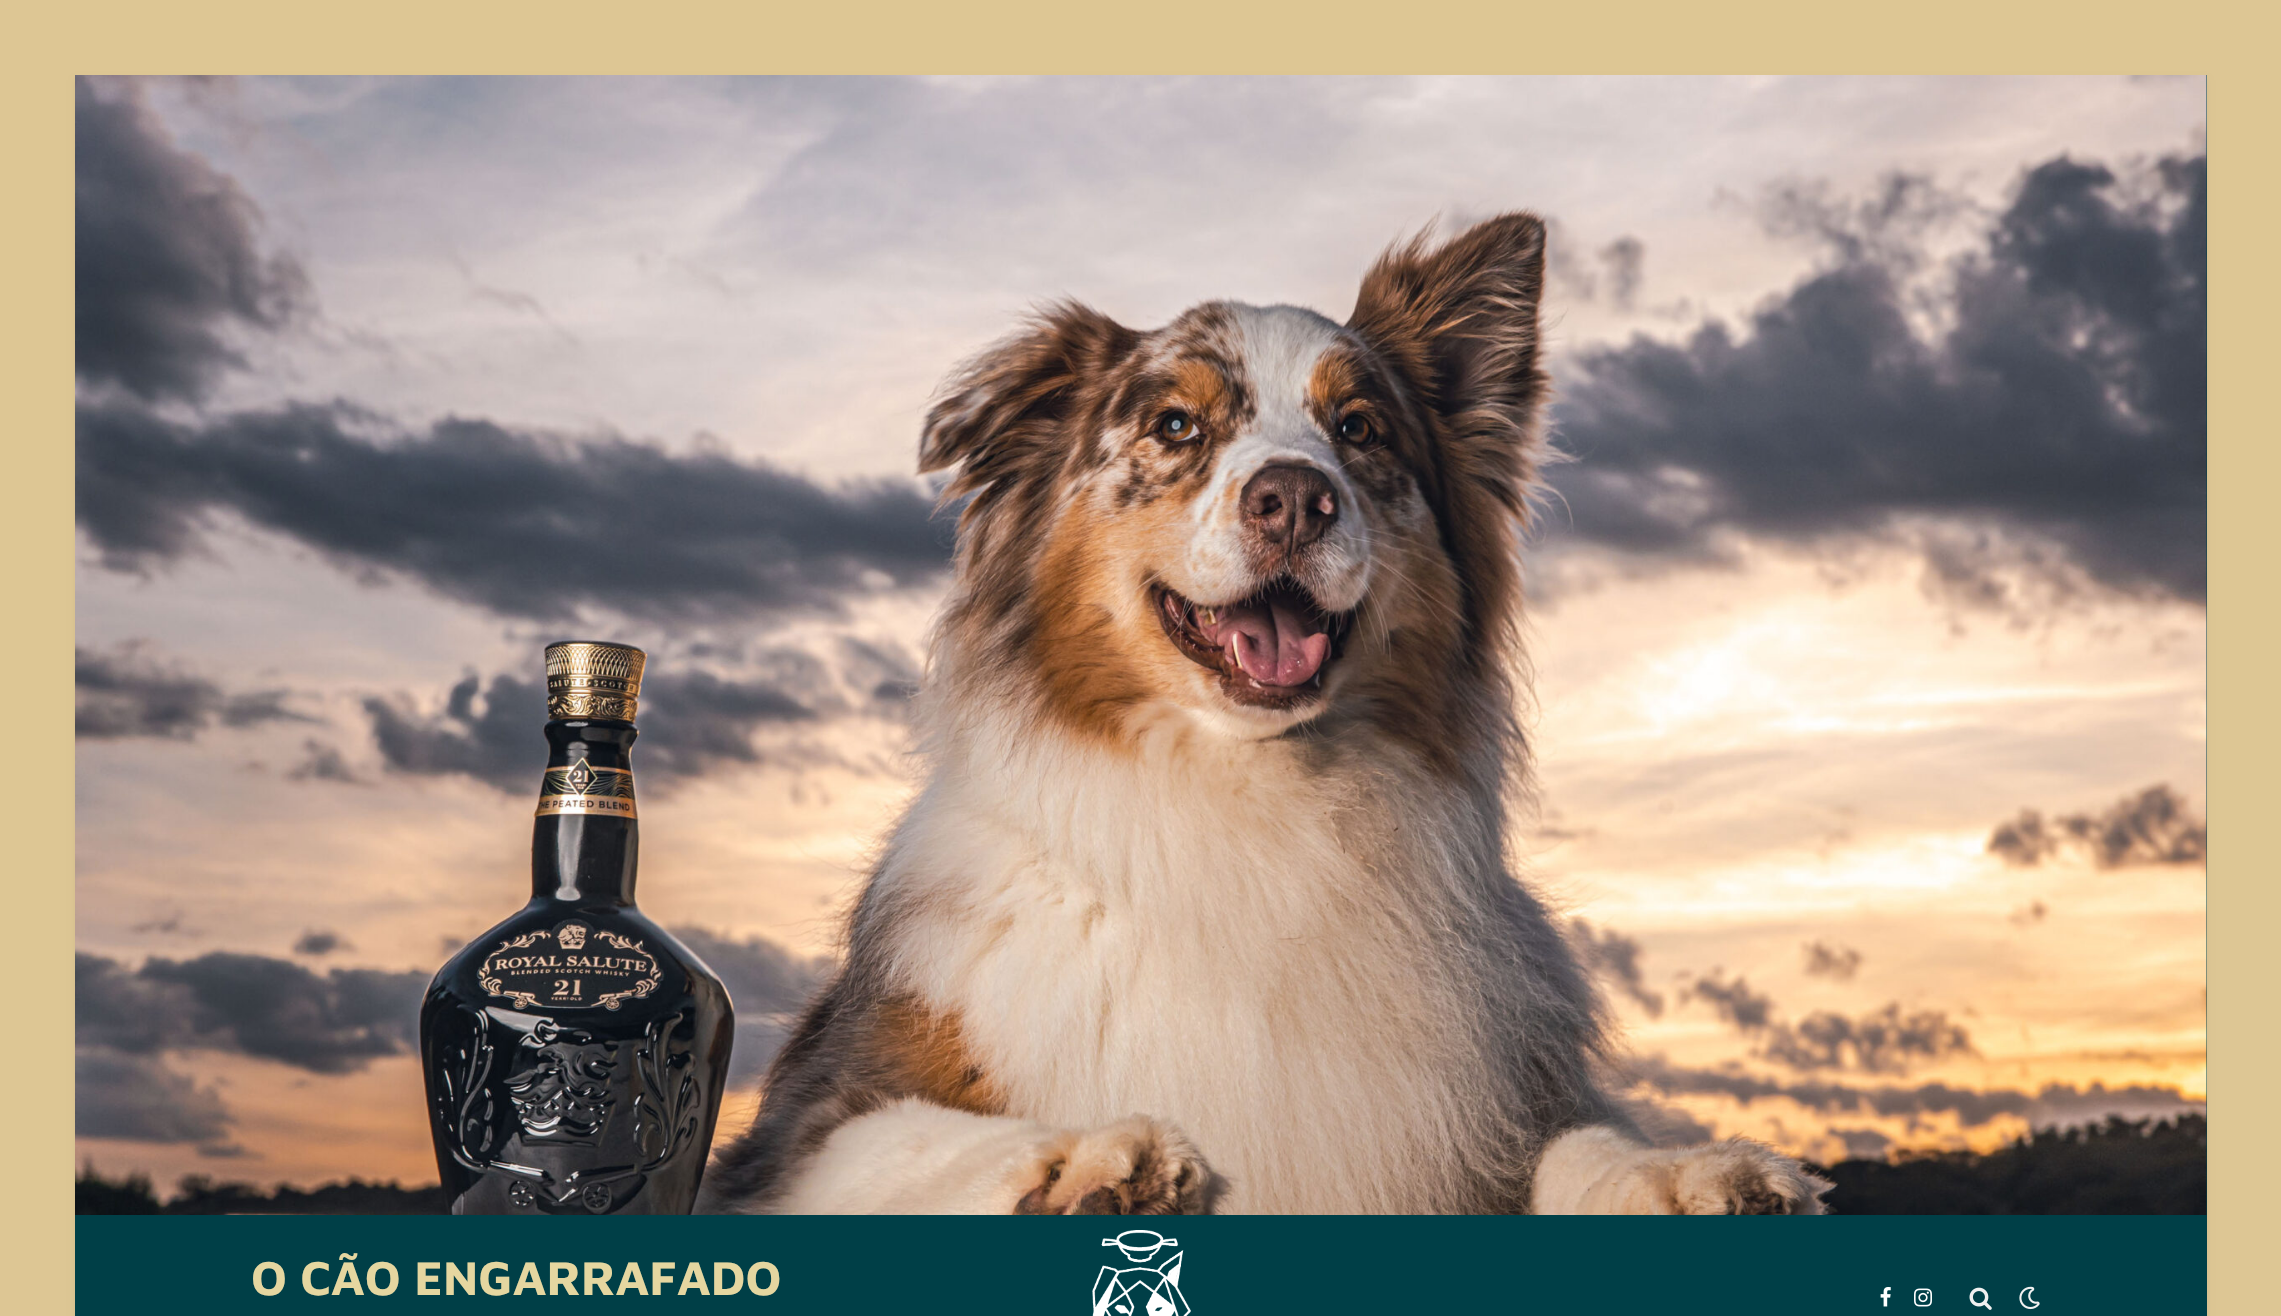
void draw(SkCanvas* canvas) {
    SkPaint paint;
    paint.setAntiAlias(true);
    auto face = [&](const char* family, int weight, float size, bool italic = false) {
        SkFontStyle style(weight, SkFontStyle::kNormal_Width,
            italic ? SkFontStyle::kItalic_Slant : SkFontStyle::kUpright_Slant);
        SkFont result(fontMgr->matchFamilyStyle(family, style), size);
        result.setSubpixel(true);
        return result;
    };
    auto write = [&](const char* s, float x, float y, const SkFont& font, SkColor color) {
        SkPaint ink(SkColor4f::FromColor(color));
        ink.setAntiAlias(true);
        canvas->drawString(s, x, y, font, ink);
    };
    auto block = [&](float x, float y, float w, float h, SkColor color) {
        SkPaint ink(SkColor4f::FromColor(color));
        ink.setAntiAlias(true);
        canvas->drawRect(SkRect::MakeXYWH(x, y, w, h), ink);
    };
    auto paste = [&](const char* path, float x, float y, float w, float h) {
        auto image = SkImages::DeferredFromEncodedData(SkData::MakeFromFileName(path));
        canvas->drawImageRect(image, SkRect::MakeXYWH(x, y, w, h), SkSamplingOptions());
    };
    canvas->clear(SkColorSetRGB(221, 198, 148));
    paint.setColor(SkColorSetARGB(13, 0, 0, 0));
    paint.setMaskFilter(SkMaskFilter::MakeBlur(kNormal_SkBlurStyle, 3));
    canvas->drawRect(SkRect::MakeXYWH(75, 80, 2132, 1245), paint);
    paint.setMaskFilter(nullptr);
    block(2206, 75, 1, 1140, SkColorSetRGB(0, 63, 71));
    paste("pic1.png", 75, 75, 2132, 1140);
    block(75, 1215, 2132, 101, SkColorSetRGB(0, 63, 71));
    auto kFont1 = face("Maven Pro", 700, 48.75f);
    write("O CÃO ENGARRAFADO", 251, 1295, kFont1, SkColorSetRGB(229, 214, 160));
    paste("pic2.png", 1092, 1230, 99, 86);
    paste("pic3.png", 1880, 1287, 11, 20);
    paste("pic4.png", 1914, 1288, 18, 19);
    paste("pic5.png", 1969, 1287, 23, 23);
    paste("pic6.png", 2019, 1286, 21, 24);
}
